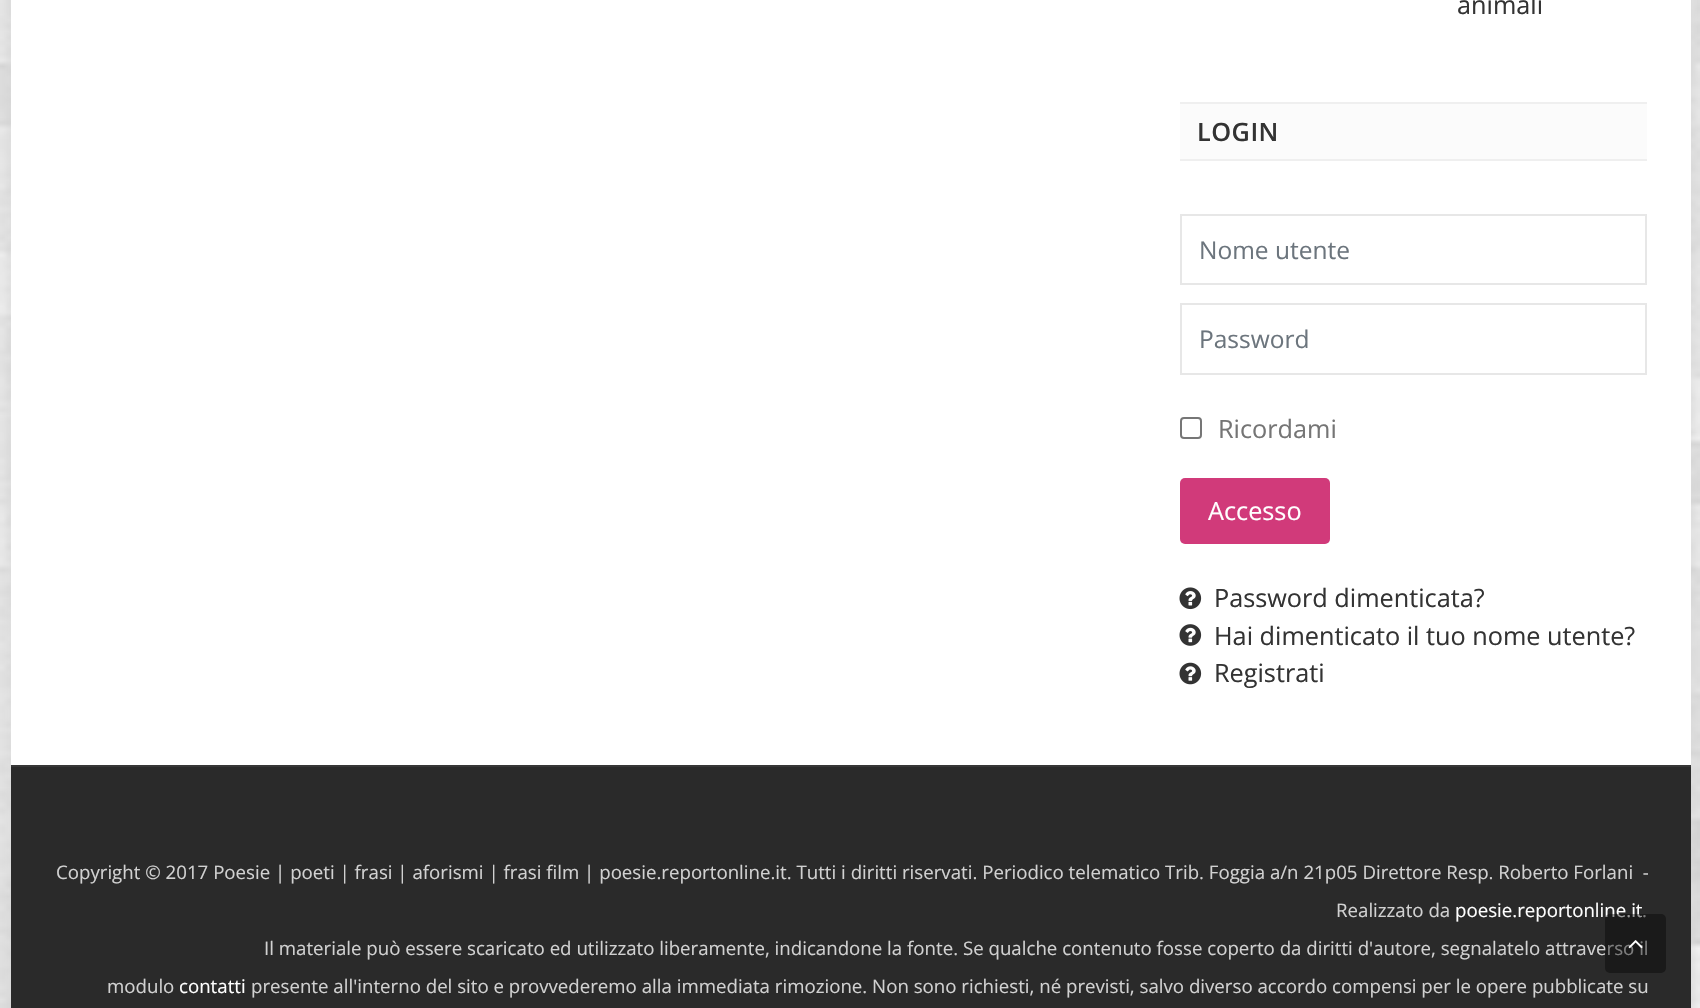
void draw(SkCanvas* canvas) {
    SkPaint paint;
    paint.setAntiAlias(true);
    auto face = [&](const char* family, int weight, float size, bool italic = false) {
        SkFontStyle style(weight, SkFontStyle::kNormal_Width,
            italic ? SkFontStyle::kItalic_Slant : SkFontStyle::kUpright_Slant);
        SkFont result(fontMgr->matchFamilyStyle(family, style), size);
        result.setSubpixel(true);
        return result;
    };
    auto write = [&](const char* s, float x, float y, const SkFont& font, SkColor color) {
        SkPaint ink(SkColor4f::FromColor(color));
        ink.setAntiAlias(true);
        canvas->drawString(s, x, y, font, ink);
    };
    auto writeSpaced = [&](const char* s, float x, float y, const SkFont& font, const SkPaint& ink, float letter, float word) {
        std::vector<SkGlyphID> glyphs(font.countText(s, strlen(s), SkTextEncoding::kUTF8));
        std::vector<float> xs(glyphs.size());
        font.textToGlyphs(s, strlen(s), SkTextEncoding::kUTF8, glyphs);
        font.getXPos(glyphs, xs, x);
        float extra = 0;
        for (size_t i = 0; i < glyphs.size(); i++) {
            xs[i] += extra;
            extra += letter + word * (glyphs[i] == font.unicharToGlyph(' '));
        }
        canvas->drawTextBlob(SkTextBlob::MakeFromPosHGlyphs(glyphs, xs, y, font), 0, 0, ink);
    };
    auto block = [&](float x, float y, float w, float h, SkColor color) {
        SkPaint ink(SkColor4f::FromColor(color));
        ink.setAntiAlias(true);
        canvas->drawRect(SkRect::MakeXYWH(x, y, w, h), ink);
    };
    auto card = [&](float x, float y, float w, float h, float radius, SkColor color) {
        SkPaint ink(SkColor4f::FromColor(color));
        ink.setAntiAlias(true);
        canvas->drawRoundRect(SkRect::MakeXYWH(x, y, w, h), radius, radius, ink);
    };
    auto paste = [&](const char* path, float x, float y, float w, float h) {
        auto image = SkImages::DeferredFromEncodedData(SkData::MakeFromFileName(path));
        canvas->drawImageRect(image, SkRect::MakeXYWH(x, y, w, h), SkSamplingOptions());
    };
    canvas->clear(SK_ColorWHITE);
    paste("pic1.png", 0, 0, 1700, 1008);
    paint.setColor(SkColorSetARGB(26, 0, 0, 0));
    paint.setMaskFilter(SkMaskFilter::MakeBlur(kNormal_SkBlurStyle, 17.5f));
    canvas->drawRect(SkRect::MakeXYWH(11, -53, 1680, 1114), paint);
    paint.setMaskFilter(nullptr);
    block(11, 0, 1680, 765, SK_ColorWHITE);
    auto kFont1 = face("Open Sans", 400, 25.25f);
    write("animali", 1457, 14, kFont1, SkColorSetRGB(51, 51, 51));
    block(1180, 104, 467, 55, SkColorSetRGB(251, 251, 251));
    block(1180, 102, 467, 2, SkColorSetRGB(239, 239, 239));
    block(1180, 159, 467, 2, SkColorSetRGB(239, 239, 239));
    auto kFont2 = face("Open Sans", 600, 25.25f);
    paint.setColor(SkColorSetRGB(51, 51, 51));
    writeSpaced("LOGIN", 1197, 141, kFont2, paint, 0.5f, 0);
    paint.setStyle(SkPaint::kStroke_Style);
    paint.setStrokeWidth(2);
    paint.setColor(SkColorSetRGB(231, 231, 231));
    canvas->drawRect(SkRect::MakeXYWH(1181, 215, 465, 69), paint);
    auto kFont3 = face("Open Sans", 400, 24.5f);
    write("Nome utente", 1199, 259, kFont3, SkColorSetRGB(108, 117, 125));
    canvas->drawRect(SkRect::MakeXYWH(1181, 304, 465, 70), paint);
    write("Password", 1199, 348, kFont3, SkColorSetRGB(108, 117, 125));
    paint.setColor(SkColorSetRGB(118, 118, 118));
    canvas->drawRoundRect(SkRect::MakeXYWH(1181, 418, 20, 20), 3, 3, paint);
    write("Ricordami", 1218, 438, kFont1, SkColorSetRGB(117, 117, 117));
    card(1180, 478, 150, 66, 5, SkColorSetRGB(209, 58, 122));
    write("Accesso", 1208, 520, kFont1, SK_ColorWHITE);
    paste("pic2.png", 1179, 587, 23, 23);
    write("Password dimenticata?", 1214, 607, kFont1, SkColorSetRGB(51, 51, 51));
    paste("pic3.png", 1179, 624, 23, 22);
    write("Hai dimenticato il tuo nome utente?", 1214, 645, kFont1, SkColorSetRGB(51, 51, 51));
    paste("pic4.png", 1179, 662, 23, 23);
    write("Registrati", 1214, 682, kFont1, SkColorSetRGB(51, 51, 51));
    block(11, 767, 1680, 241, SkColorSetRGB(42, 42, 42));
    block(11, 765, 1680, 2, SkColorSetRGB(55, 55, 55));
    auto kFont4 = face("Open Sans", 400, 18.67f);
    write("Copyright © 2017 Poesie | poeti | frasi | aforismi | frasi film | poesie.reportonline.it. Tutti i diritti riservati. Periodico telematico Trib. Foggia a/n 21p05 Direttore Resp. Roberto Forlani  -", 56, 879, kFont4, SkColorSetRGB(209, 209, 209));
    write("Realizzato da", 1336, 917, kFont4, SkColorSetRGB(209, 209, 209));
    write("poesie.reportonline.it", 1455, 917, kFont4, SK_ColorWHITE);
    write(".", 1642, 917, kFont4, SkColorSetRGB(209, 209, 209));
    write("Il materiale può essere scaricato ed utilizzato liberamente, indicandone la fonte. Se qualche contenuto fosse coperto da diritti d'autore, segnalatelo attraverso il", 264, 955, kFont4, SkColorSetRGB(209, 209, 209));
    write("modulo", 107, 993, kFont4, SkColorSetRGB(209, 209, 209));
    write("contatti", 179, 993, kFont4, SK_ColorWHITE);
    write("presente all'interno del sito e provvederemo alla immediata rimozione. Non sono richiesti, né previsti, salvo diverso accordo compensi per le opere pubblicate su", 251, 993, kFont4, SkColorSetRGB(209, 209, 209));
    card(1605, 914, 61, 59, 5, SkColorSetARGB(102, 0, 0, 0));
    paste("pic5.png", 1628, 940, 15, 9);
}
